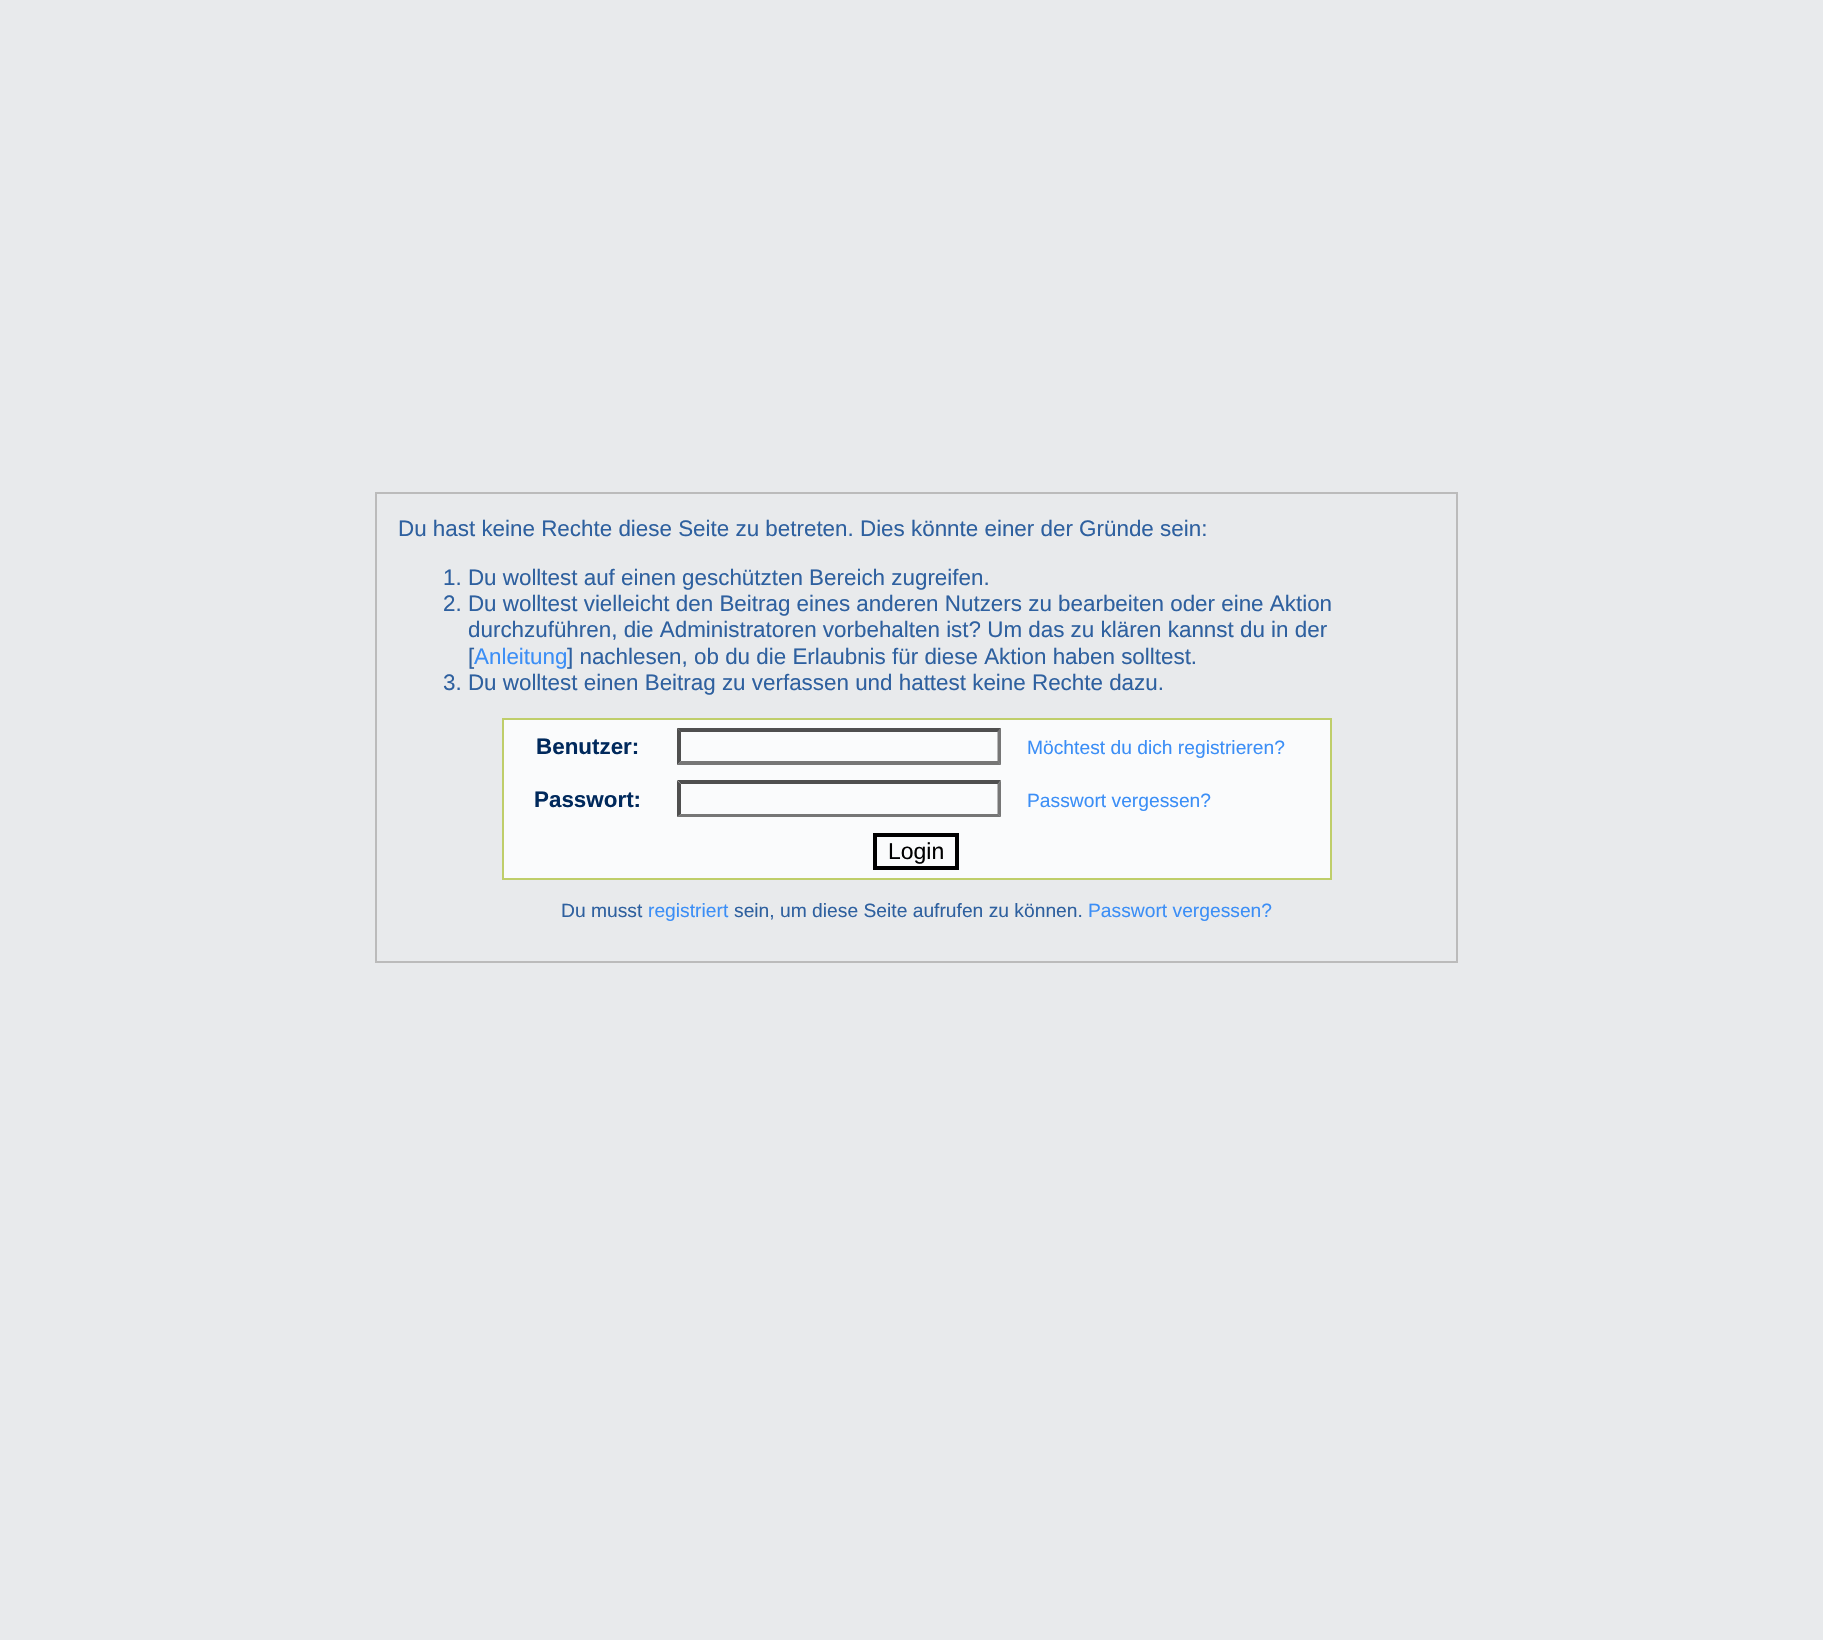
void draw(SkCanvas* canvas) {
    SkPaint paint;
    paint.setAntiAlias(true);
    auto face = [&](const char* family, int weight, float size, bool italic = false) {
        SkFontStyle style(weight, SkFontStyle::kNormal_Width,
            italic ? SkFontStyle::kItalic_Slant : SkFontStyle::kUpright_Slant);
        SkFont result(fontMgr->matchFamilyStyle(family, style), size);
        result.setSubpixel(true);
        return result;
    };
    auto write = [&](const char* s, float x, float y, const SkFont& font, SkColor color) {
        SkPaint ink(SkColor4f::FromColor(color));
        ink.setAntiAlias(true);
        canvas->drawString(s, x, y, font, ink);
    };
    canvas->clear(SkColorSetRGB(232, 234, 236));
    paint.setStyle(SkPaint::kStroke_Style);
    paint.setStrokeWidth(2);
    paint.setColor(SkColorSetRGB(187, 187, 187));
    canvas->drawRect(SkRect::MakeXYWH(376, 493, 1081, 469), paint);
    auto kFont1 = face("Liberation Sans", 400, 22.4f);
    write("Du hast keine Rechte diese Seite zu betreten. Dies könnte einer der Gründe sein:", 398, 536, kFont1, SkColorSetRGB(46, 96, 159));
    write("1. Du wolltest auf einen geschützten Bereich zugreifen.", 443, 585, kFont1, SkColorSetRGB(46, 96, 159));
    write("2. Du wolltest vielleicht den Beitrag eines anderen Nutzers zu bearbeiten oder eine Aktion", 443, 611, kFont1, SkColorSetRGB(46, 96, 159));
    write("durchzuführen, die Administratoren vorbehalten ist? Um das zu klären kannst du in der", 468, 637, kFont1, SkColorSetRGB(46, 96, 159));
    write("[", 468, 664, kFont1, SkColorSetRGB(46, 96, 159));
    write("Anleitung", 474, 664, kFont1, SkColorSetRGB(59, 142, 246));
    write("] nachlesen, ob du die Erlaubnis für diese Aktion haben solltest.", 567, 664, kFont1, SkColorSetRGB(46, 96, 159));
    write("3. Du wolltest einen Beitrag zu verfassen und hattest keine Rechte dazu.", 443, 690, kFont1, SkColorSetRGB(46, 96, 159));
    paint.setStyle(SkPaint::kFill_Style);
    paint.setColor(SkColorSetRGB(250, 251, 252));
    canvas->drawRect(SkRect::MakeXYWH(503, 719, 828, 160), paint);
    paint.setStyle(SkPaint::kStroke_Style);
    paint.setColor(SkColorSetRGB(191, 206, 106));
    canvas->drawRect(SkRect::MakeXYWH(503, 719, 828, 160), paint);
    auto kFont2 = face("Liberation Sans", 700, 22.4f);
    write("Benutzer:", 536, 754, kFont2, SkColorSetRGB(0, 41, 92));
    paint.setStyle(SkPaint::kFill_Style);
    paint.setColor(SkColorSetRGB(79, 79, 79));
    canvas->drawPath(SkPathBuilder().moveTo(677, 728).lineTo(1001, 728).lineTo(998, 732).lineTo(681, 732).close().detach(), paint);
    paint.setColor(SkColorSetRGB(118, 118, 118));
    canvas->drawPath(SkPathBuilder().moveTo(1001, 728).lineTo(1001, 765).lineTo(997.5f, 761).lineTo(997.5f, 731.5f).close().detach(), paint);
    canvas->drawPath(SkPathBuilder().moveTo(1001, 765).lineTo(677, 765).lineTo(681, 761).lineTo(998, 761).close().detach(), paint);
    paint.setColor(SkColorSetRGB(79, 79, 79));
    canvas->drawPath(SkPathBuilder().moveTo(677, 765).lineTo(677, 728).lineTo(681, 731.5f).lineTo(681, 761).close().detach(), paint);
    auto kFont3 = face("Liberation Sans", 400, 19.25f);
    write("Möchtest du dich registrieren?", 1027, 754, kFont3, SkColorSetRGB(59, 142, 246));
    write("Passwort:", 534, 807, kFont2, SkColorSetRGB(0, 41, 92));
    canvas->drawPath(SkPathBuilder().moveTo(677, 780).lineTo(1001, 780).lineTo(998, 784).lineTo(681, 784).close().detach(), paint);
    paint.setColor(SkColorSetRGB(118, 118, 118));
    canvas->drawPath(SkPathBuilder().moveTo(1001, 780.5f).lineTo(1001, 817).lineTo(997.5f, 814).lineTo(997.5f, 784).close().detach(), paint);
    canvas->drawPath(SkPathBuilder().moveTo(1001, 817).lineTo(677, 817).lineTo(681, 814).lineTo(998, 814).close().detach(), paint);
    paint.setColor(SkColorSetRGB(79, 79, 79));
    canvas->drawPath(SkPathBuilder().moveTo(677, 817).lineTo(677, 780.5f).lineTo(681, 784).lineTo(681, 814).close().detach(), paint);
    write("Passwort vergessen?", 1027, 807, kFont3, SkColorSetRGB(59, 142, 246));
    paint.setStyle(SkPaint::kStroke_Style);
    paint.setStrokeWidth(4);
    paint.setColor(SK_ColorBLACK);
    canvas->drawRect(SkRect::MakeXYWH(875, 835, 82, 33), paint);
    auto kFont4 = face("Liberation Sans", 400, 23);
    write("Login", 888, 859, kFont4, SK_ColorBLACK);
    write("Du musst", 561, 917, kFont3, SkColorSetRGB(46, 96, 159));
    write("registriert", 648, 917, kFont3, SkColorSetRGB(59, 142, 246));
    write("sein, um diese Seite aufrufen zu können.", 734, 917, kFont3, SkColorSetRGB(46, 96, 159));
    write("Passwort vergessen?", 1088, 917, kFont3, SkColorSetRGB(59, 142, 246));
}
